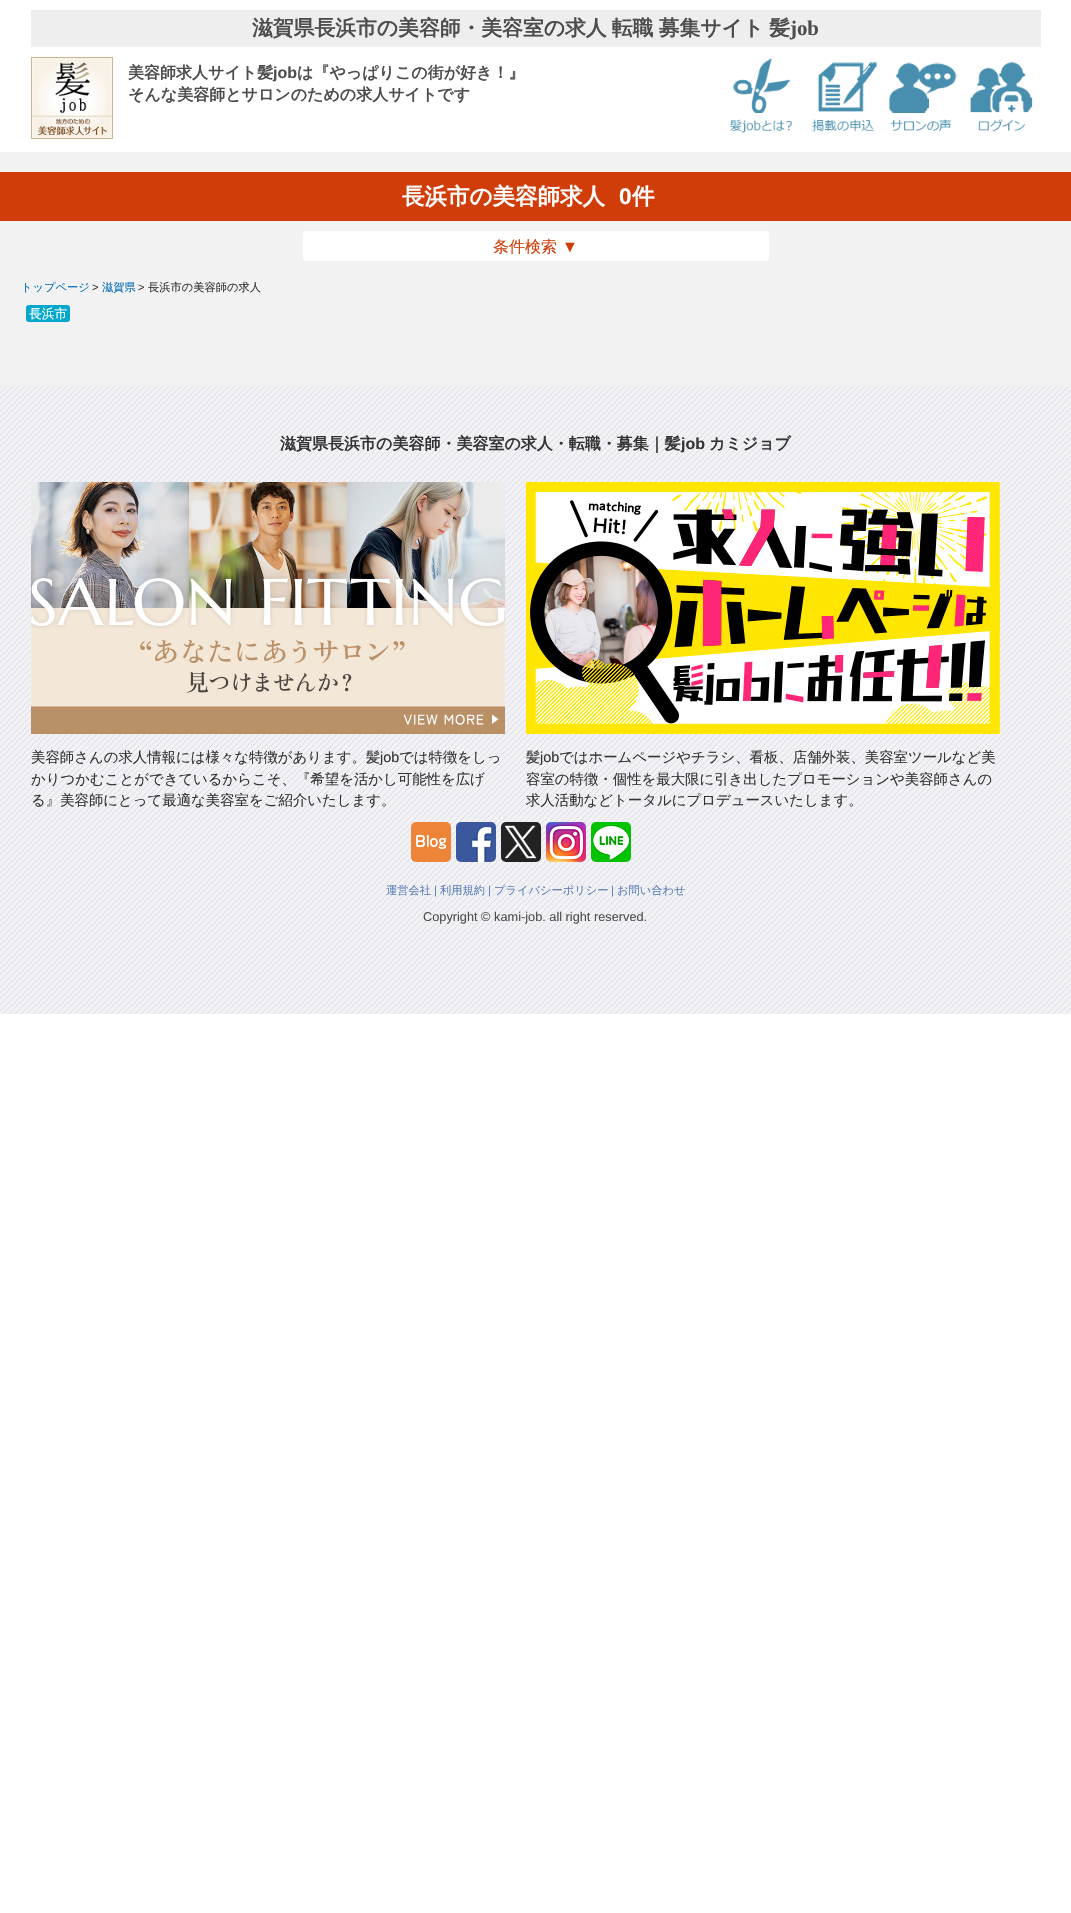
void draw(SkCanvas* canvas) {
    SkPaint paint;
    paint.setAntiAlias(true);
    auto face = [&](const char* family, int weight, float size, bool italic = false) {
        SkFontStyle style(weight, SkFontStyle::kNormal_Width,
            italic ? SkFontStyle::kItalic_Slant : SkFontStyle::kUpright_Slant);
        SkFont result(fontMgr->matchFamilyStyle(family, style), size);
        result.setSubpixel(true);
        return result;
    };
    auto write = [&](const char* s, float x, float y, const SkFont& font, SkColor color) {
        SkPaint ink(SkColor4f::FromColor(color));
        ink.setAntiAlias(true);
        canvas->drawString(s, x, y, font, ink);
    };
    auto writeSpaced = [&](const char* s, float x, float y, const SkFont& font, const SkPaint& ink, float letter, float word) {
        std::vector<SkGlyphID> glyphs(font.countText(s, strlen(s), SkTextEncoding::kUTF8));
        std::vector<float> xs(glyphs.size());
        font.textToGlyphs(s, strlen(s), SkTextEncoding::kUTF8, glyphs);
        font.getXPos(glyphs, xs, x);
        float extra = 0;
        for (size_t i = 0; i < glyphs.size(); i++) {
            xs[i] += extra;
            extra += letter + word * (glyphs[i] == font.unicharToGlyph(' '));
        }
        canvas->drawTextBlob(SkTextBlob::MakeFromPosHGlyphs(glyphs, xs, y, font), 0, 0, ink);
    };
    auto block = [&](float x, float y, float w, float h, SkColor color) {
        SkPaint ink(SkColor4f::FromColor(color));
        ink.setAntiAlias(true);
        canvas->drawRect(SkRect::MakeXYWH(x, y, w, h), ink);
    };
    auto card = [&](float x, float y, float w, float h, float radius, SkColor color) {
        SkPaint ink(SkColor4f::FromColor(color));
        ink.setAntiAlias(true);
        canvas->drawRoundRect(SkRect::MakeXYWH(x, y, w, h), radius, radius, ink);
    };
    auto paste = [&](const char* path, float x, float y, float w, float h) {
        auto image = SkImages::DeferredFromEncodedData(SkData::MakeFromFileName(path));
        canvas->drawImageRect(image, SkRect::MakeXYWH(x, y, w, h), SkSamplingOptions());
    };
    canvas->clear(SK_ColorWHITE);
    block(0, 152, 1071, 862, SkColorSetRGB(242, 242, 242));
    block(31, 10, 1010, 37, SkColorSetRGB(238, 238, 238));
    auto kFont1 = face("WenQuanYi Zen Hei", 700, 20.8f);
    paint.setColor(SkColorSetRGB(77, 77, 77));
    writeSpaced("滋賀県長浜市の美容師・美容室の求人 転職 募集サイト 髪", 252, 35, kFont1, paint, 0, -1);
    auto kFont2 = face("Liberation Serif", 700, 20.8f);
    write("job", 790, 35, kFont2, SkColorSetRGB(77, 77, 77));
    paint.setStyle(SkPaint::kStroke_Style);
    paint.setStrokeWidth(1);
    paint.setColor(SkColorSetRGB(200, 183, 140));
    canvas->drawRect(SkRect::MakeXYWH(31.5f, 57.5f, 81, 81), paint);
    paste("pic1.png", 32, 58, 80, 80);
    auto kFont3 = face("WenQuanYi Zen Hei", 700, 16);
    write("美容師求人サイト髪", 128, 78, kFont3, SkColorSetRGB(77, 77, 77));
    auto kFont4 = face("Liberation Sans", 700, 16);
    write("job", 273, 78, kFont4, SkColorSetRGB(77, 77, 77));
    write("は『やっぱりこの街が好き！』", 297, 78, kFont3, SkColorSetRGB(77, 77, 77));
    write("そんな美容師とサロンのための求人サイトです", 128, 100, kFont3, SkColorSetRGB(77, 77, 77));
    paste("pic2.png", 729, 58, 64, 75);
    paste("pic3.png", 812, 61, 65, 71);
    paste("pic4.png", 887, 62, 70, 70);
    paste("pic5.png", 970, 61, 63, 71);
    block(0, 172, 1071, 49, SkColorSetRGB(209, 61, 9));
    auto kFont5 = face("WenQuanYi Zen Hei", 700, 22.5f);
    write("長浜市の美容師求人", 402, 204, kFont5, SK_ColorWHITE);
    auto kFont6 = face("Liberation Sans", 700, 22.5f);
    write("0", 619, 204, kFont6, SK_ColorWHITE);
    write("件", 632, 204, kFont5, SK_ColorWHITE);
    card(303, 231, 466, 30, 3, SK_ColorWHITE);
    auto kFont7 = face("WenQuanYi Zen Hei", 500, 16);
    write("条件検索", 493, 252, kFont7, SkColorSetRGB(209, 61, 9));
    auto kFont8 = face("Liberation Sans", 400, 16);
    write("▼", 562, 252, kFont8, SkColorSetRGB(209, 61, 9));
    auto kFont9 = face("WenQuanYi Zen Hei", 500, 11.25f);
    write("トップページ", 21, 291, kFont9, SkColorSetRGB(3, 110, 183));
    auto kFont10 = face("Liberation Sans", 400, 11.25f);
    write(">", 92, 291, kFont10, SkColorSetRGB(51, 51, 51));
    write("滋賀県", 102, 291, kFont9, SkColorSetRGB(3, 110, 183));
    write(">", 138, 291, kFont10, SkColorSetRGB(51, 51, 51));
    write("長浜市の美容師の求人", 148, 291, kFont9, SkColorSetRGB(51, 51, 51));
    card(26, 305, 44, 17, 3, SkColorSetRGB(1, 168, 204));
    auto kFont11 = face("WenQuanYi Zen Hei", 500, 12.75f);
    write("長浜市", 29, 318, kFont11, SK_ColorWHITE);
    paste("pic6.png", 0, 386, 1071, 628);
    write("滋賀県長浜市の美容師・美容室の求人・転職・募集｜髪", 280, 449, kFont3, SkColorSetRGB(51, 51, 51));
    write("job", 681, 449, kFont4, SkColorSetRGB(51, 51, 51));
    write("カミジョブ", 709, 449, kFont3, SkColorSetRGB(51, 51, 51));
    paste("pic7.png", 31, 482, 474, 252);
    auto kFont12 = face("WenQuanYi Zen Hei", 500, 14.4f);
    write("美容師さんの求人情報には様々な特徴があります。髪", 31, 762, kFont12, SkColorSetRGB(51, 51, 51));
    auto kFont13 = face("Liberation Sans", 400, 14.4f);
    write("job", 380, 762, kFont13, SkColorSetRGB(51, 51, 51));
    write("では特徴をしっ", 399, 762, kFont12, SkColorSetRGB(51, 51, 51));
    write("かりつかむことができているからこそ、『希望を活かし可能性を広げ", 31, 784, kFont12, SkColorSetRGB(51, 51, 51));
    write("る』美容師にとって最適な美容室をご紹介いたします。", 31, 805, kFont12, SkColorSetRGB(51, 51, 51));
    paste("pic8.png", 526, 482, 474, 252);
    write("髪", 526, 762, kFont12, SkColorSetRGB(51, 51, 51));
    write("job", 540, 762, kFont13, SkColorSetRGB(51, 51, 51));
    write("ではホームページやチラシ、看板、店舗外装、美容室ツールなど美", 559, 762, kFont12, SkColorSetRGB(51, 51, 51));
    write("容室の特徴・個性を最大限に引き出したプロモーションや美容師さんの", 526, 784, kFont12, SkColorSetRGB(51, 51, 51));
    write("求人活動などトータルにプロデュースいたします。", 526, 805, kFont12, SkColorSetRGB(51, 51, 51));
    paste("pic9.png", 411, 822, 40, 40);
    paste("pic10.png", 456, 822, 40, 40);
    paste("pic11.png", 501, 822, 40, 40);
    paste("pic12.png", 546, 822, 40, 40);
    paste("pic13.png", 591, 822, 40, 40);
    write("運営会社", 386, 894, kFont9, SkColorSetRGB(90, 127, 183));
    write("|", 434, 894, kFont10, SkColorSetRGB(90, 127, 183));
    write("利用規約", 440, 894, kFont9, SkColorSetRGB(90, 127, 183));
    write("|", 488, 894, kFont10, SkColorSetRGB(90, 127, 183));
    write("プライバシーポリシー", 494, 894, kFont9, SkColorSetRGB(90, 127, 183));
    write("|", 611, 894, kFont10, SkColorSetRGB(90, 127, 183));
    write("お問い合わせ", 617, 894, kFont9, SkColorSetRGB(90, 127, 183));
    auto kFont14 = face("Liberation Sans", 400, 12.75f);
    write("Copyright © kami-job. all right reserved.", 423, 921, kFont14, SkColorSetRGB(77, 77, 77));
}
